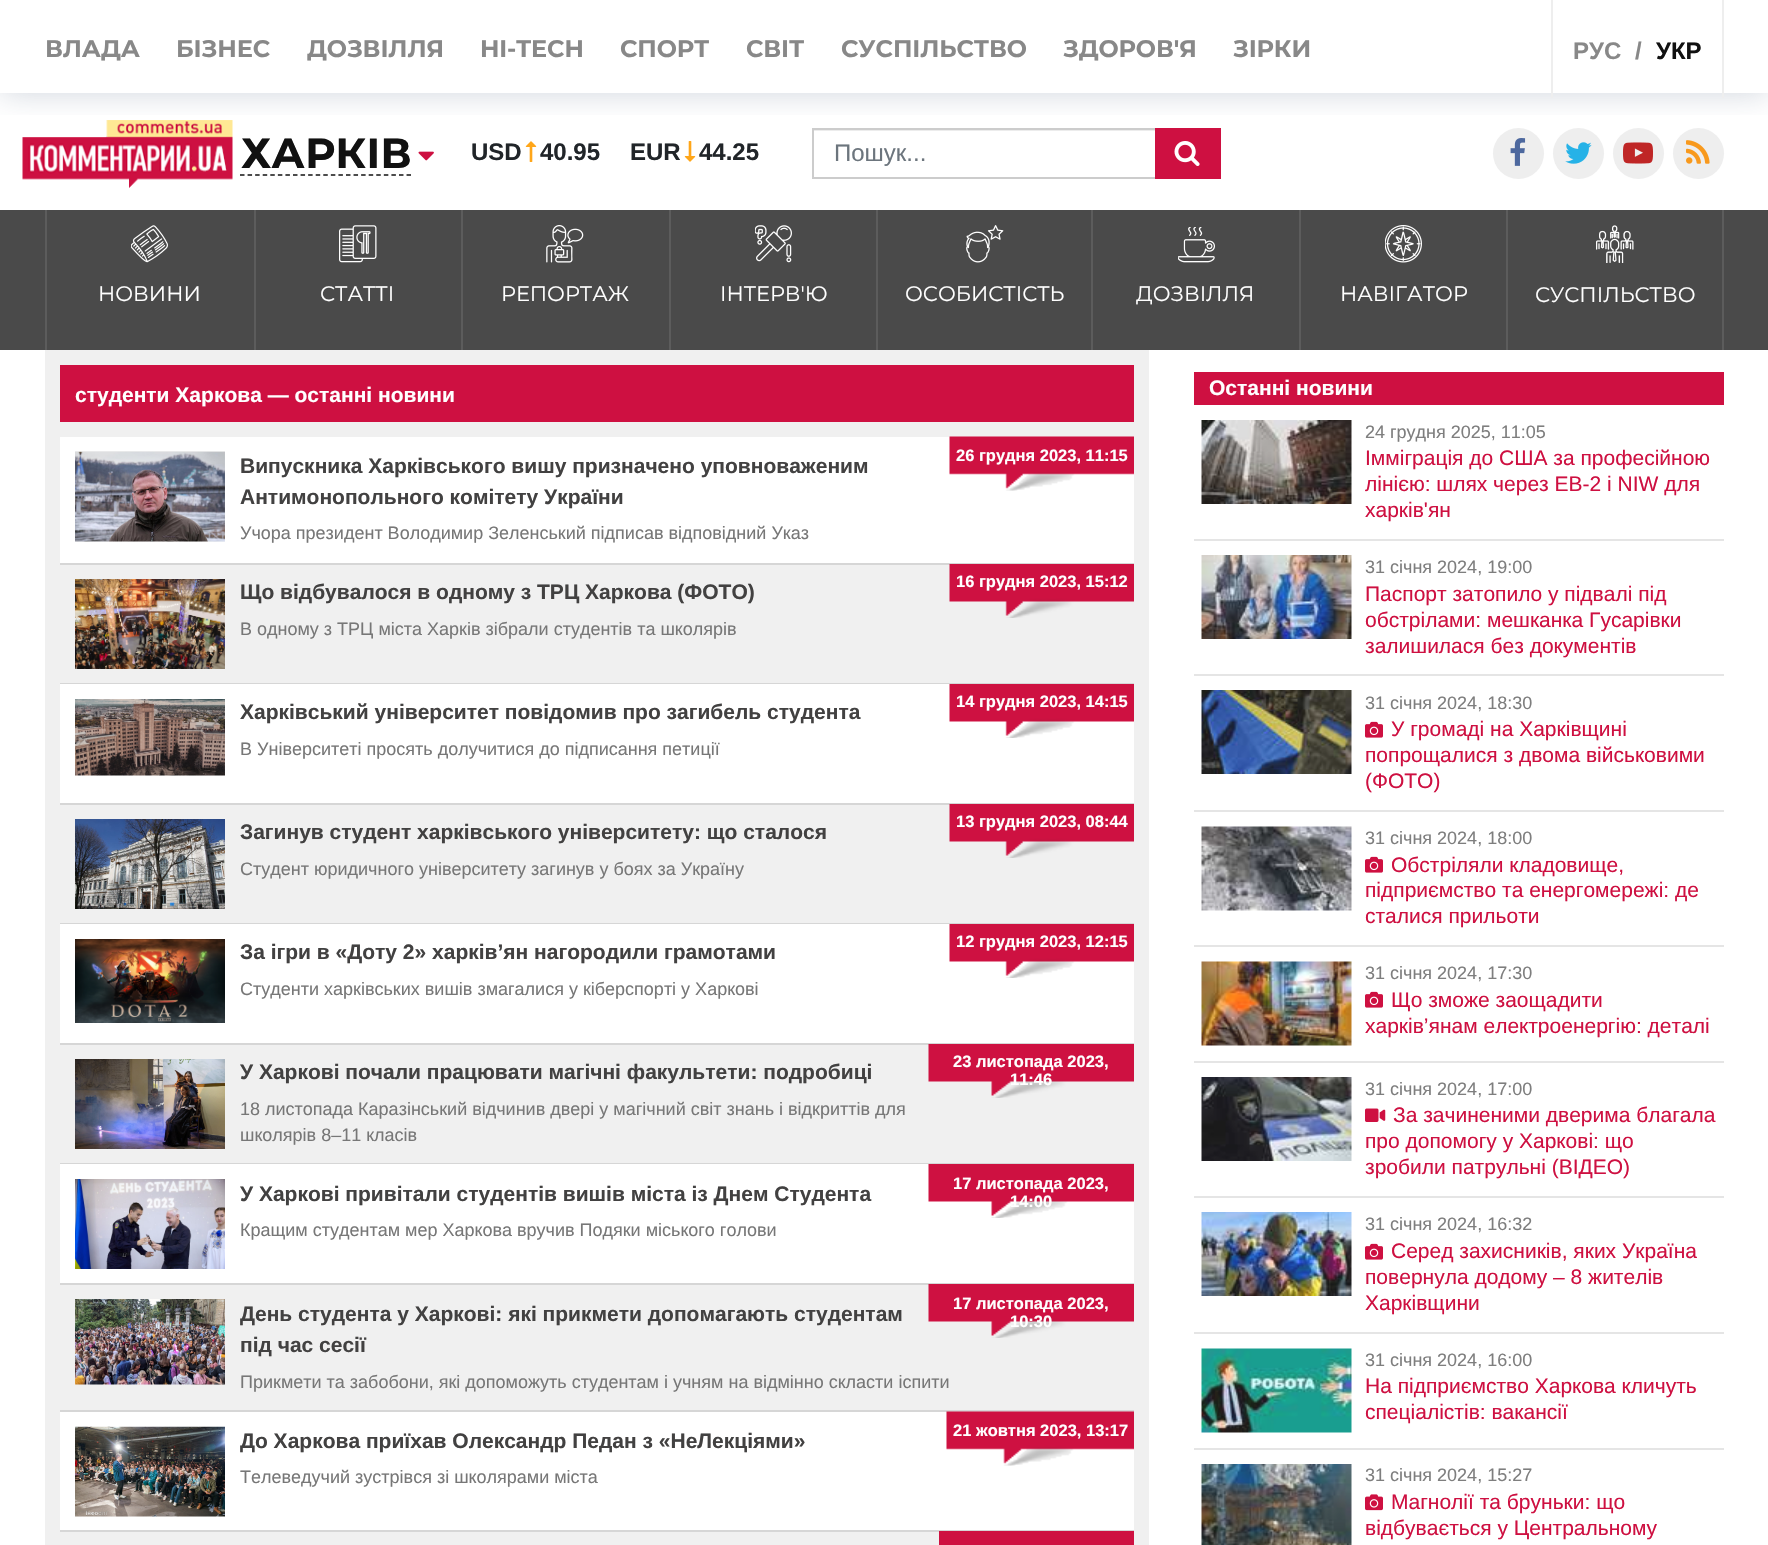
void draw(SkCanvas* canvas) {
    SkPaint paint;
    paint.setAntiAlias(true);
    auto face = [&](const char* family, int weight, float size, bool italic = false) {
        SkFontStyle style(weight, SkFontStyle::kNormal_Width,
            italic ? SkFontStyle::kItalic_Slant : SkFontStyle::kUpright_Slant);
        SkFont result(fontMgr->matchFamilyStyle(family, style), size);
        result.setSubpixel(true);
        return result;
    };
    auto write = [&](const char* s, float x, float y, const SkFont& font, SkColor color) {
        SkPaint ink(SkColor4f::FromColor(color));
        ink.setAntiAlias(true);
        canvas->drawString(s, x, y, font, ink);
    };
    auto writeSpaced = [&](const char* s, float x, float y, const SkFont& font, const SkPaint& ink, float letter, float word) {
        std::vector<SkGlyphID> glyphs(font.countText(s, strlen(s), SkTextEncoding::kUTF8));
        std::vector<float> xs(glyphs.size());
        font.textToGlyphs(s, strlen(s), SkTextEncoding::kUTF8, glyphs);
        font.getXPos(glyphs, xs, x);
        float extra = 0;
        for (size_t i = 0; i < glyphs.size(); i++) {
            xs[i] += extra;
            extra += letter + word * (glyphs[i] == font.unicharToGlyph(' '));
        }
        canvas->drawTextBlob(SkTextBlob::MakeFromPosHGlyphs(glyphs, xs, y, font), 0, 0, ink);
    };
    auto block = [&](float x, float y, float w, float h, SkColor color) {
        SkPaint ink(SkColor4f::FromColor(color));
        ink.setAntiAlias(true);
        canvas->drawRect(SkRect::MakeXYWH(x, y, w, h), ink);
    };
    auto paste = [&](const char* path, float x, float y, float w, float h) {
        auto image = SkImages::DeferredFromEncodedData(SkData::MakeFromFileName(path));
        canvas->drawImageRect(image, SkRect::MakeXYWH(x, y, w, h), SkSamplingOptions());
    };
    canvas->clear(SK_ColorWHITE);
    paste("pic1.png", 22, 120, 211, 68);
    paste("pic3.png", 525, 141, 12, 21);
    paste("pic4.png", 684, 141, 12, 21);
    block(813, 130, 342, 1, SkColorSetRGB(236, 236, 236));
    paint.setStyle(SkPaint::kStroke_Style);
    paint.setStrokeWidth(2);
    paint.setColor(SkColorSetRGB(204, 204, 204));
    canvas->drawRect(SkRect::MakeXYWH(813, 129, 407, 49), paint);
    block(1155, 128, 66, 51, SkColorSetRGB(206, 16, 65));
    paste("pic5.png", 1174, 141, 26, 25);
    paint.setStyle(SkPaint::kFill_Style);
    paint.setColor(SkColorSetRGB(238, 238, 238));
    canvas->drawCircle(1518.5f, 153.5f, 25.5f, paint);
    paste("pic6.png", 1510, 138, 16, 28);
    canvas->drawCircle(1578.5f, 153.5f, 25.5f, paint);
    canvas->drawCircle(1638.5f, 153.5f, 25.5f, paint);
    canvas->drawCircle(1698.5f, 153.5f, 25.5f, paint);
    paste("pic9.png", 1686, 140, 24, 24);
    canvas->save();
    canvas->clipRect(SkRect::MakeXYWH(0, 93, 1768, 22));
    paint.setColor(SkColorSetARGB(64, 62, 83, 117));
    paint.setMaskFilter(SkMaskFilter::MakeBlur(kNormal_SkBlurStyle, 16));
    canvas->drawRect(SkRect::MakeXYWH(0, 0, 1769, 93), paint);
    paint.setMaskFilter(nullptr);
    canvas->restore();
    auto kFont1 = face("Montserrat", 700, 24);
    paint.setColor(SkColorSetRGB(136, 136, 136));
    writeSpaced("ВЛАДА", 45, 57, kFont1, paint, -0.1f, 0);
    writeSpaced("БІЗНЕС", 176, 57, kFont1, paint, -0.1f, 0);
    writeSpaced("ДОЗВІЛЛЯ", 307, 57, kFont1, paint, -0.1f, 0);
    writeSpaced("HI-TECH", 480, 57, kFont1, paint, -0.1f, 0);
    writeSpaced("СПОРТ", 620, 57, kFont1, paint, -0.1f, 0);
    writeSpaced("СВІТ", 746, 57, kFont1, paint, -0.1f, 0);
    writeSpaced("СУСПІЛЬСТВО", 841, 57, kFont1, paint, -0.1f, 0);
    writeSpaced("ЗДОРОВ'Я", 1063, 57, kFont1, paint, -0.1f, 0);
    writeSpaced("ЗІРКИ", 1233, 57, kFont1, paint, -0.1f, 0);
    block(1722, 0, 2, 98, SkColorSetRGB(238, 238, 238));
    block(1551, 0, 2, 98, SkColorSetRGB(238, 238, 238));
    auto kFont2 = face("Liberation Sans", 700, 24);
    write("РУС", 1573, 59, kFont2, SkColorSetRGB(136, 136, 136));
    write("/", 1635, 59, kFont2, SkColorSetRGB(136, 136, 136));
    write("УКР", 1656, 59, kFont2, SkColorSetRGB(17, 17, 17));
    paint.setStyle(SkPaint::kStroke_Style);
    paint.setStrokeWidth(1.5f);
    paint.setColor(SkColorSetRGB(17, 17, 17));
    paint.setPathEffect(SkDashPathEffect::Make({{4.5f, 3.07f}}, 0));
    canvas->drawPath(SkPathBuilder().moveTo(240, 175).lineTo(411, 175).detach(), paint);
    paint.setPathEffect(nullptr);
    auto kFont3 = face("Montserrat", 700, 42);
    write("ХАРКІВ", 241, 168, kFont3, SkColorSetRGB(17, 17, 17));
    paste("pic2.png", 418, 151, 16, 10);
    write("USD", 471, 160, kFont2, SkColorSetRGB(33, 37, 41));
    write("40.95", 540, 160, kFont2, SkColorSetRGB(33, 37, 41));
    write("EUR", 630, 160, kFont2, SkColorSetRGB(33, 37, 41));
    write("44.25", 699, 160, kFont2, SkColorSetRGB(33, 37, 41));
    auto kFont4 = face("Liberation Sans", 400, 24);
    write("Пошук...", 834, 161, kFont4, SkColorSetRGB(108, 117, 125));
    paste("pic7.png", 1565, 142, 27, 22);
    paste("pic8.png", 1623, 142, 30, 22);
    block(0, 210, 1768, 140, SkColorSetRGB(74, 74, 74));
    block(45, 210, 2, 140, SkColorSetRGB(92, 92, 92));
    paste("pic10.png", 131, 225, 37, 38);
    auto kFont5 = face("Montserrat", 400, 21);
    write("НОВИНИ", 98, 301, kFont5, SK_ColorWHITE);
    block(254, 210, 2, 140, SkColorSetRGB(92, 92, 92));
    paste("pic11.png", 339, 225, 38, 38);
    write("СТАТТІ", 320, 301, kFont5, SK_ColorWHITE);
    block(461, 210, 2, 140, SkColorSetRGB(92, 92, 92));
    paste("pic12.png", 546, 225, 38, 38);
    write("РЕПОРТАЖ", 501, 301, kFont5, SK_ColorWHITE);
    block(669, 210, 2, 140, SkColorSetRGB(92, 92, 92));
    paste("pic13.png", 755, 225, 37, 38);
    write("ІНТЕРВ'Ю", 720, 301, kFont5, SK_ColorWHITE);
    block(876, 210, 2, 140, SkColorSetRGB(92, 92, 92));
    paste("pic14.png", 966, 225, 38, 38);
    write("ОСОБИСТІСТЬ", 905, 301, kFont5, SK_ColorWHITE);
    block(1091, 210, 2, 140, SkColorSetRGB(92, 92, 92));
    paste("pic15.png", 1178, 227, 37, 36);
    write("ДОЗВІЛЛЯ", 1136, 301, kFont5, SK_ColorWHITE);
    block(1299, 210, 2, 140, SkColorSetRGB(92, 92, 92));
    paste("pic16.png", 1385, 225, 37, 38);
    write("НАВІГАТОР", 1340, 301, kFont5, SK_ColorWHITE);
    block(1722, 210, 2, 140, SkColorSetRGB(92, 92, 92));
    block(1506, 210, 2, 140, SkColorSetRGB(92, 92, 92));
    paste("pic17.png", 1596, 225, 38, 38);
    write("СУСПІЛЬСТВО", 1535, 302, kFont5, SK_ColorWHITE);
    block(45, 350, 1104, 1195, SkColorSetRGB(240, 240, 240));
    block(60, 365, 1074, 57, SkColorSetRGB(206, 16, 65));
    auto kFont6 = face("Liberation Sans", 700, 21);
    write("студенти Харкова — останні новини", 75, 402, kFont6, SK_ColorWHITE);
    block(60, 437, 1074, 126, SK_ColorWHITE);
    block(60, 563, 1074, 2, SkColorSetRGB(214, 214, 214));
    paste("pic18.png", 75, 451, 150, 91);
    write("Випускника Харківського вишу призначено уповноваженим", 240, 473, kFont6, SkColorSetRGB(66, 65, 65));
    write("Антимонопольного комітету України", 240, 504, kFont6, SkColorSetRGB(66, 65, 65));
    paste("pic19.png", 949, 436, 185, 55);
    auto kFont7 = face("Liberation Sans", 700, 16.5f);
    write("26 грудня 2023, 11:15", 956, 461, kFont7, SK_ColorWHITE);
    auto kFont8 = face("Liberation Sans", 400, 18);
    write("Учора президент Володимир Зеленський підписав відповідний Указ", 240, 539, kFont8, SkColorSetRGB(119, 119, 119));
    block(60, 683, 1074, 1, SkColorSetRGB(214, 214, 214));
    paste("pic20.png", 75, 579, 150, 90);
    write("Що відбувалося в одному з ТРЦ Харкова (ФОТО)", 240, 599, kFont6, SkColorSetRGB(66, 65, 65));
    paste("pic21.png", 949, 564, 185, 54);
    write("16 грудня 2023, 15:12", 956, 587, kFont7, SK_ColorWHITE);
    write("В одному з ТРЦ міста Харків зібрали студентів та школярів", 240, 635, kFont8, SkColorSetRGB(119, 119, 119));
    block(60, 684, 1074, 119, SK_ColorWHITE);
    block(60, 803, 1074, 2, SkColorSetRGB(214, 214, 214));
    paste("pic22.png", 75, 699, 150, 77);
    write("Харківський університет повідомив про загибель студента", 240, 719, kFont6, SkColorSetRGB(66, 65, 65));
    paste("pic23.png", 949, 684, 185, 54);
    write("14 грудня 2023, 14:15", 956, 707, kFont7, SK_ColorWHITE);
    write("В Університеті просять долучитися до підписання петиції", 240, 755, kFont8, SkColorSetRGB(119, 119, 119));
    block(60, 923, 1074, 1, SkColorSetRGB(214, 214, 214));
    paste("pic24.png", 75, 819, 150, 90);
    write("Загинув студент харківського університету: що сталося", 240, 839, kFont6, SkColorSetRGB(66, 65, 65));
    paste("pic21.png", 949, 804, 185, 54);
    write("13 грудня 2023, 08:44", 956, 827, kFont7, SK_ColorWHITE);
    write("Студент юридичного університету загинув у боях за Україну", 240, 875, kFont8, SkColorSetRGB(119, 119, 119));
    block(60, 924, 1074, 119, SK_ColorWHITE);
    block(60, 1043, 1074, 2, SkColorSetRGB(214, 214, 214));
    paste("pic25.png", 75, 939, 150, 84);
    write("За ігри в «Доту 2» харків’ян нагородили грамотами", 240, 959, kFont6, SkColorSetRGB(66, 65, 65));
    paste("pic23.png", 949, 924, 185, 54);
    write("12 грудня 2023, 12:15", 956, 947, kFont7, SK_ColorWHITE);
    write("Студенти харківських вишів змагалися у кіберспорті у Харкові", 240, 995, kFont8, SkColorSetRGB(119, 119, 119));
    block(60, 1163, 1074, 1, SkColorSetRGB(214, 214, 214));
    paste("pic26.png", 75, 1059, 150, 90);
    write("У Харкові почали працювати магічні факультети: подробиці", 240, 1079, kFont6, SkColorSetRGB(66, 65, 65));
    paste("pic27.png", 928, 1044, 206, 54);
    write("23 листопада 2023,", 953, 1067, kFont7, SK_ColorWHITE);
    write("11:46", 1010, 1085, kFont7, SK_ColorWHITE);
    write("18 листопада Каразінський відчинив двері у магічний світ знань і відкриттів для", 240, 1115, kFont8, SkColorSetRGB(119, 119, 119));
    write("школярів 8–11 класів", 240, 1141, kFont8, SkColorSetRGB(119, 119, 119));
    block(60, 1164, 1074, 119, SK_ColorWHITE);
    block(60, 1283, 1074, 2, SkColorSetRGB(214, 214, 214));
    paste("pic28.png", 75, 1179, 150, 90);
    write("У Харкові привітали студентів вишів міста із Днем Студента", 240, 1201, kFont6, SkColorSetRGB(66, 65, 65));
    paste("pic29.png", 928, 1164, 206, 54);
    write("17 листопада 2023,", 953, 1189, kFont7, SK_ColorWHITE);
    write("14:00", 1010, 1207, kFont7, SK_ColorWHITE);
    write("Кращим студентам мер Харкова вручив Подяки міського голови", 240, 1236, kFont8, SkColorSetRGB(119, 119, 119));
    block(60, 1410, 1074, 2, SkColorSetRGB(214, 214, 214));
    paste("pic30.png", 75, 1299, 150, 86);
    write("День студента у Харкові: які прикмети допомагають студентам", 240, 1321, kFont6, SkColorSetRGB(66, 65, 65));
    write("під час сесії", 240, 1352, kFont6, SkColorSetRGB(66, 65, 65));
    paste("pic27.png", 928, 1284, 206, 54);
    write("17 листопада 2023,", 953, 1309, kFont7, SK_ColorWHITE);
    write("10:30", 1010, 1327, kFont7, SK_ColorWHITE);
    write("Прикмети та забобони, які допоможуть студентам і учням на відмінно скласти іспити", 240, 1388, kFont8, SkColorSetRGB(119, 119, 119));
    block(60, 1412, 1074, 118, SK_ColorWHITE);
    block(60, 1530, 1074, 2, SkColorSetRGB(214, 214, 214));
    paste("pic31.png", 75, 1426, 150, 91);
    write("До Харкова приїхав Олександр Педан з «НеЛекціями»", 240, 1448, kFont6, SkColorSetRGB(66, 65, 65));
    paste("pic32.png", 946, 1411, 188, 55);
    write("21 жовтня 2023, 13:17", 953, 1436, kFont7, SK_ColorWHITE);
    write("Телеведучий зустрівся зі школярами міста", 240, 1483, kFont8, SkColorSetRGB(119, 119, 119));
    block(939, 1531, 195, 14, SkColorSetRGB(206, 17, 65));
    block(1194, 372, 530, 33, SkColorSetRGB(206, 16, 65));
    write("Останні новини", 1209, 395, kFont6, SK_ColorWHITE);
    block(1194, 539, 530, 2, SkColorSetRGB(229, 229, 229));
    paste("pic33.png", 1201, 420, 151, 84);
    write("24 грудня 2025, 11:05", 1365, 438, kFont8, SkColorSetRGB(126, 126, 126));
    auto kFont9 = face("Liberation Sans", 400, 21);
    write("Імміграція до США за професійною", 1365, 465, kFont9, SkColorSetRGB(206, 16, 65));
    write("лінією: шлях через EB-2 і NIW для", 1365, 491, kFont9, SkColorSetRGB(206, 16, 65));
    write("харків'ян", 1365, 517, kFont9, SkColorSetRGB(206, 16, 65));
    block(1194, 674, 530, 2, SkColorSetRGB(229, 229, 229));
    paste("pic34.png", 1201, 555, 151, 84);
    write("31 січня 2024, 19:00", 1365, 573, kFont8, SkColorSetRGB(126, 126, 126));
    write("Паспорт затопило у підвалі під", 1365, 601, kFont9, SkColorSetRGB(206, 16, 65));
    write("обстрілами: мешканка Гусарівки", 1365, 627, kFont9, SkColorSetRGB(206, 16, 65));
    write("залишилася без документів", 1365, 653, kFont9, SkColorSetRGB(206, 16, 65));
    block(1194, 810, 530, 2, SkColorSetRGB(229, 229, 229));
    paste("pic35.png", 1201, 690, 151, 84);
    write("31 січня 2024, 18:30", 1365, 709, kFont8, SkColorSetRGB(126, 126, 126));
    paste("pic36.png", 1365, 721, 18, 17);
    write("У громаді на Харківщині", 1391, 736, kFont9, SkColorSetRGB(206, 16, 65));
    write("попрощалися з двома військовими", 1365, 762, kFont9, SkColorSetRGB(206, 16, 65));
    write("(ФОТО)", 1365, 788, kFont9, SkColorSetRGB(206, 16, 65));
    block(1194, 945, 530, 2, SkColorSetRGB(229, 229, 229));
    paste("pic37.png", 1201, 826, 151, 85);
    write("31 січня 2024, 18:00", 1365, 844, kFont8, SkColorSetRGB(126, 126, 126));
    paste("pic36.png", 1365, 856, 18, 17);
    write("Обстріляли кладовище,", 1391, 872, kFont9, SkColorSetRGB(206, 16, 65));
    write("підприємство та енергомережі: де", 1365, 897, kFont9, SkColorSetRGB(206, 16, 65));
    write("сталися прильоти", 1365, 923, kFont9, SkColorSetRGB(206, 16, 65));
    block(1194, 1061, 530, 2, SkColorSetRGB(229, 229, 229));
    paste("pic38.png", 1201, 961, 151, 85);
    write("31 січня 2024, 17:30", 1365, 979, kFont8, SkColorSetRGB(126, 126, 126));
    paste("pic36.png", 1365, 991, 18, 17);
    write("Що зможе заощадити", 1391, 1007, kFont9, SkColorSetRGB(206, 16, 65));
    write("харків’янам електроенергію: деталі", 1365, 1033, kFont9, SkColorSetRGB(206, 16, 65));
    block(1194, 1196, 530, 2, SkColorSetRGB(229, 229, 229));
    paste("pic39.png", 1201, 1077, 151, 84);
    write("31 січня 2024, 17:00", 1365, 1095, kFont8, SkColorSetRGB(126, 126, 126));
    paste("pic40.png", 1365, 1108, 21, 14);
    write("За зачиненими дверима благала", 1393, 1122, kFont9, SkColorSetRGB(206, 16, 65));
    write("про допомогу у Харкові: що", 1365, 1148, kFont9, SkColorSetRGB(206, 16, 65));
    write("зробили патрульні (ВІДЕО)", 1365, 1174, kFont9, SkColorSetRGB(206, 16, 65));
    block(1194, 1332, 530, 2, SkColorSetRGB(229, 229, 229));
    paste("pic41.png", 1201, 1212, 151, 84);
    write("31 січня 2024, 16:32", 1365, 1230, kFont8, SkColorSetRGB(126, 126, 126));
    paste("pic36.png", 1365, 1243, 18, 17);
    write("Серед захисників, яких Україна", 1391, 1258, kFont9, SkColorSetRGB(206, 16, 65));
    write("повернула додому – 8 жителів", 1365, 1284, kFont9, SkColorSetRGB(206, 16, 65));
    write("Харківщини", 1365, 1310, kFont9, SkColorSetRGB(206, 16, 65));
    block(1194, 1448, 530, 2, SkColorSetRGB(229, 229, 229));
    paste("pic42.png", 1201, 1348, 151, 85);
    write("31 січня 2024, 16:00", 1365, 1366, kFont8, SkColorSetRGB(126, 126, 126));
    write("На підприємство Харкова кличуть", 1365, 1393, kFont9, SkColorSetRGB(206, 16, 65));
    write("спеціалістів: вакансії", 1365, 1419, kFont9, SkColorSetRGB(206, 16, 65));
    paste("pic43.png", 1201, 1464, 151, 81);
    write("31 січня 2024, 15:27", 1365, 1481, kFont8, SkColorSetRGB(126, 126, 126));
    paste("pic44.png", 1365, 1494, 18, 17);
    write("Магнолії та бруньки: що", 1391, 1509, kFont9, SkColorSetRGB(206, 16, 65));
    write("відбувається у Центральному", 1365, 1535, kFont9, SkColorSetRGB(206, 16, 65));
}
